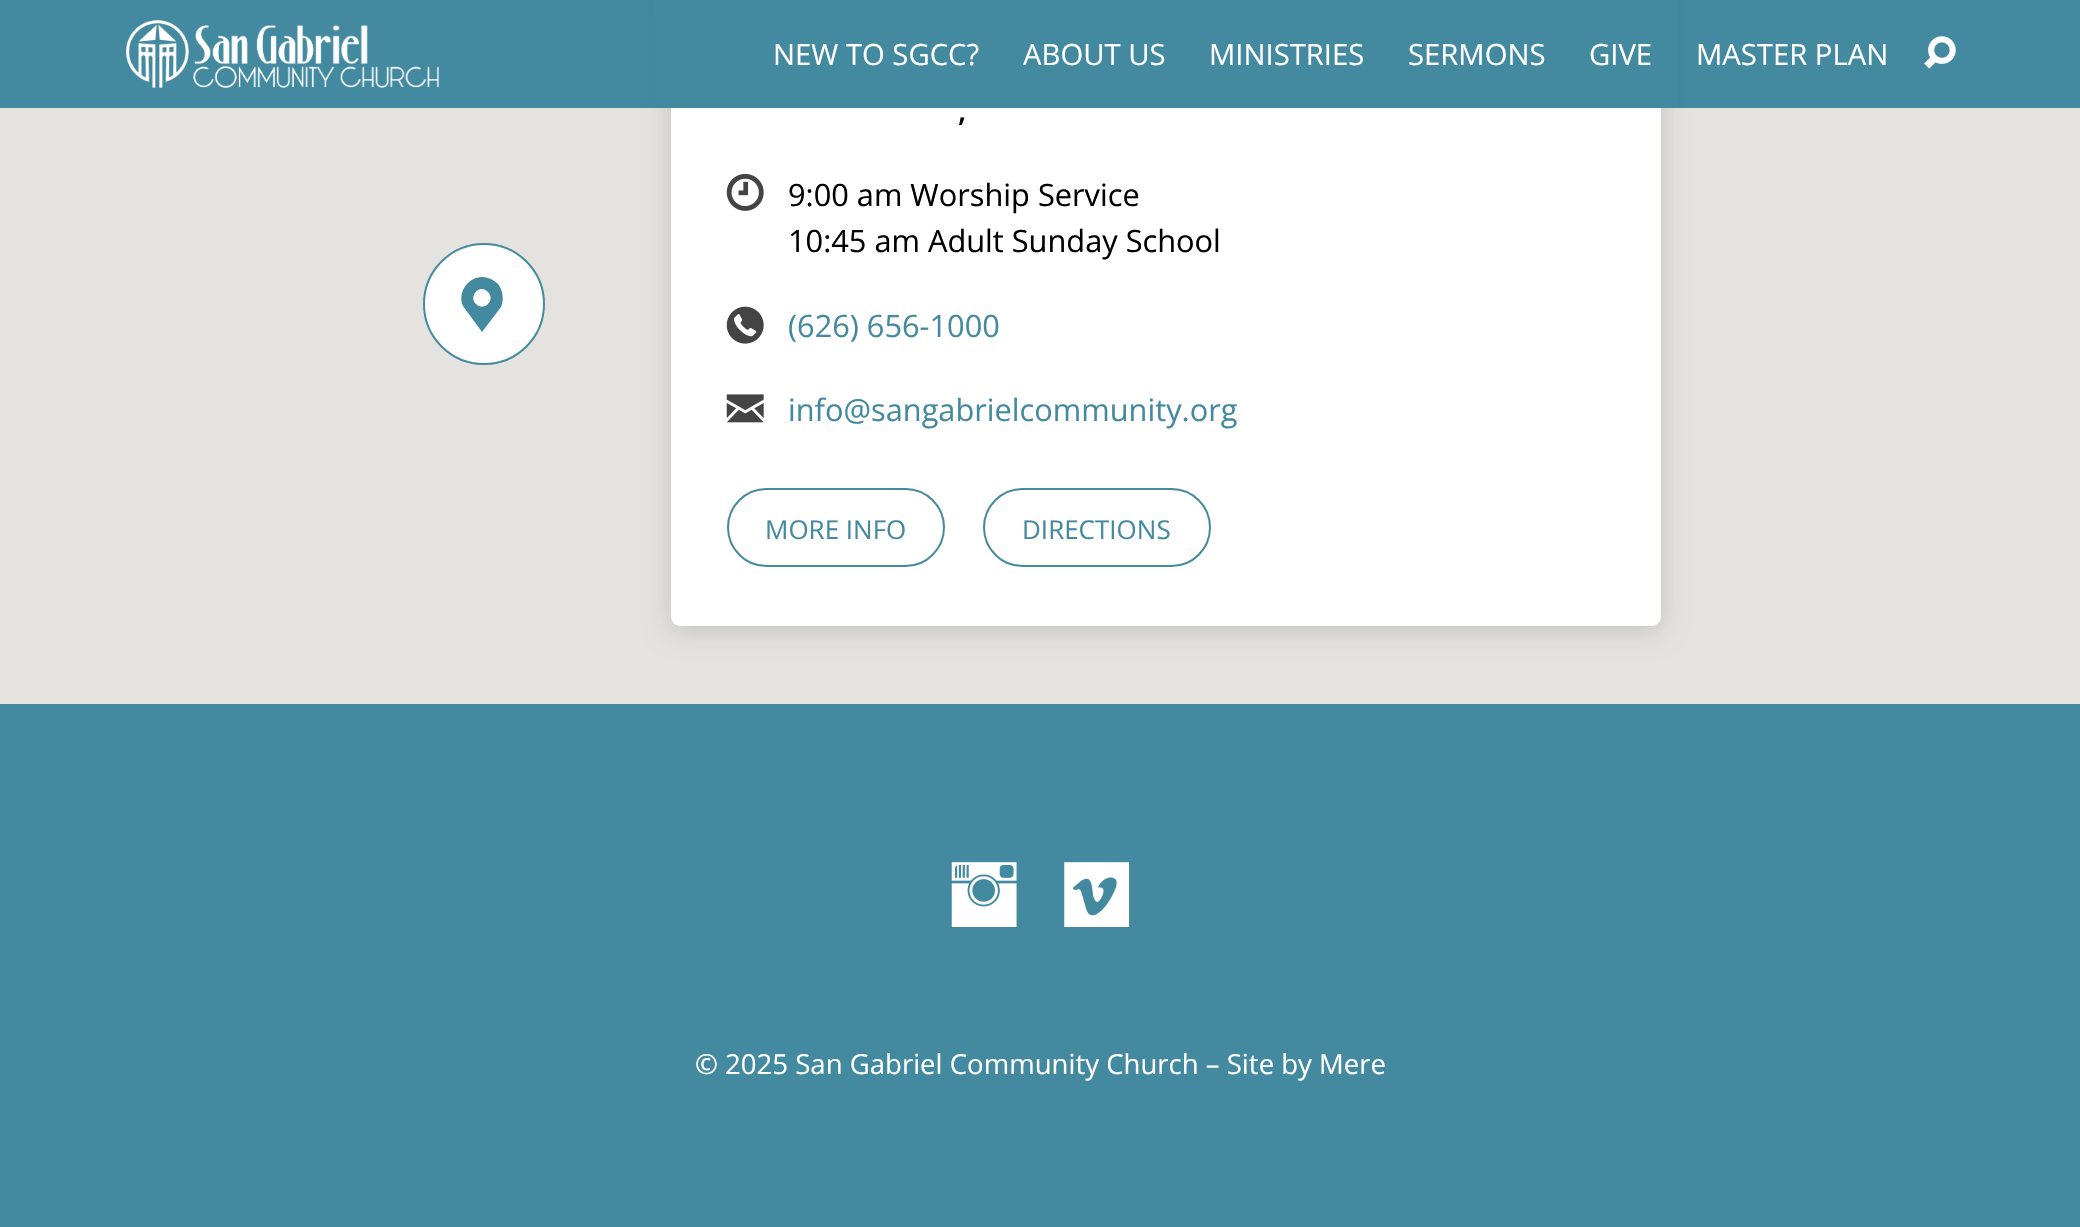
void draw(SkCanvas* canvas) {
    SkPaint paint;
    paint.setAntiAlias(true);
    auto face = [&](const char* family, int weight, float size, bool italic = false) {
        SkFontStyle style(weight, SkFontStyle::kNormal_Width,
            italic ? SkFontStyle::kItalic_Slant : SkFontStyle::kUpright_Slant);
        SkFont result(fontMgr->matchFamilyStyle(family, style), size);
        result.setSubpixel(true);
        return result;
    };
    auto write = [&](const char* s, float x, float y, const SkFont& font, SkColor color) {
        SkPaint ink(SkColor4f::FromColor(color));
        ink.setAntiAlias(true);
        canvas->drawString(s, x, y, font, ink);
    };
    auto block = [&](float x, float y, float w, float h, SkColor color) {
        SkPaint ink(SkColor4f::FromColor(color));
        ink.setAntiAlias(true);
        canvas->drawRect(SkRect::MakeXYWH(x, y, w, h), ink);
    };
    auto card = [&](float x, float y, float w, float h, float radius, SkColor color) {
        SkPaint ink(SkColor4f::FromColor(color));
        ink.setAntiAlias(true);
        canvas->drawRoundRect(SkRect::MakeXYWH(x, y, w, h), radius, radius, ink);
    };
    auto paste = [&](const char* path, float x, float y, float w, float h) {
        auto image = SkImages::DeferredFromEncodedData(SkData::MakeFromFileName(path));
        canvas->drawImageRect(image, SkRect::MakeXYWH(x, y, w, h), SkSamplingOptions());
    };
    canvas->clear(SkColorSetRGB(67, 138, 160));
    block(0, 108, 2080, 596, SkColorSetRGB(229, 227, 223));
    paint.setColor(SkColorSetARGB(38, 0, 0, 0));
    paint.setMaskFilter(SkMaskFilter::MakeBlur(kNormal_SkBlurStyle, 13.5f));
    canvas->drawRoundRect(SkRect::MakeXYWH(671, -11, 990, 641), 9, 9, paint);
    paint.setMaskFilter(nullptr);
    card(671, -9, 990, 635, 9, SK_ColorWHITE);
    block(654, 0, 1024, 108, SkColorSetRGB(67, 138, 160));
    paste("pic1.png", 126, 20, 313, 68);
    auto kFont1 = face("Open Sans", 400, 29.25f);
    write("NEW TO SGCC?", 773, 65, kFont1, SK_ColorWHITE);
    write("ABOUT US", 1023, 65, kFont1, SK_ColorWHITE);
    write("MINISTRIES", 1209, 65, kFont1, SK_ColorWHITE);
    write("SERMONS", 1408, 65, kFont1, SK_ColorWHITE);
    write("GIVE", 1589, 65, kFont1, SK_ColorWHITE);
    write("MASTER PLAN", 1696, 65, kFont1, SK_ColorWHITE);
    paste("pic2.png", 1924, 36, 32, 33);
    paint.setColor(SK_ColorWHITE);
    canvas->drawCircle(484, 304, 60, paint);
    paint.setStyle(SkPaint::kStroke_Style);
    paint.setStrokeWidth(2);
    paint.setColor(SkColorSetRGB(67, 138, 160));
    canvas->drawCircle(484, 304, 60, paint);
    paint.setStyle(SkPaint::kFill_Style);
    canvas->drawPath(SkPathBuilder().moveTo(482, 277).cubicTo(488, 277, 494, 280, 498, 284).cubicTo(503, 290, 504, 300, 501, 307).lineTo(482, 332).lineTo(463, 306).cubicTo(457, 293, 468, 277, 482, 277).close().moveTo(488, 292).cubicTo(480, 283, 468, 296, 476, 304).cubicTo(484, 312, 496, 300, 488, 292).close().detach(), paint);
    auto kFont2 = face("Open Sans", 600, 30.75f);
    write(",", 958, 121, kFont2, SK_ColorBLACK);
    paste("pic3.png", 726, 173, 38, 38);
    auto kFont3 = face("Open Sans", 400, 30.75f);
    write("9:00 am Worship Service", 788, 206, kFont3, SK_ColorBLACK);
    write("10:45 am Adult Sunday School", 788, 252, kFont3, SK_ColorBLACK);
    paste("pic4.png", 726, 306, 38, 38);
    write("(626) 656-1000", 788, 337, kFont3, SkColorSetRGB(67, 138, 160));
    paste("pic5.png", 726, 394, 38, 29);
    write("info@sangabrielcommunity.org", 788, 421, kFont3, SkColorSetRGB(67, 138, 160));
    paint.setStyle(SkPaint::kStroke_Style);
    canvas->drawRoundRect(SkRect::MakeXYWH(728, 489, 216, 77), 38.5f, 38.5f, paint);
    auto kFont4 = face("Open Sans", 400, 26);
    write("MORE INFO", 765, 539, kFont4, SkColorSetRGB(67, 138, 160));
    canvas->drawRoundRect(SkRect::MakeXYWH(984, 489, 226, 77), 38.5f, 38.5f, paint);
    write("DIRECTIONS", 1022, 539, kFont4, SkColorSetRGB(67, 138, 160));
    paste("pic6.png", 951, 862, 66, 65);
    paste("pic7.png", 1064, 862, 66, 65);
    auto kFont5 = face("Open Sans", 400, 27.55f);
    write("© 2025 San Gabriel Community Church – Site by Mere", 695, 1074, kFont5, SK_ColorWHITE);
}
